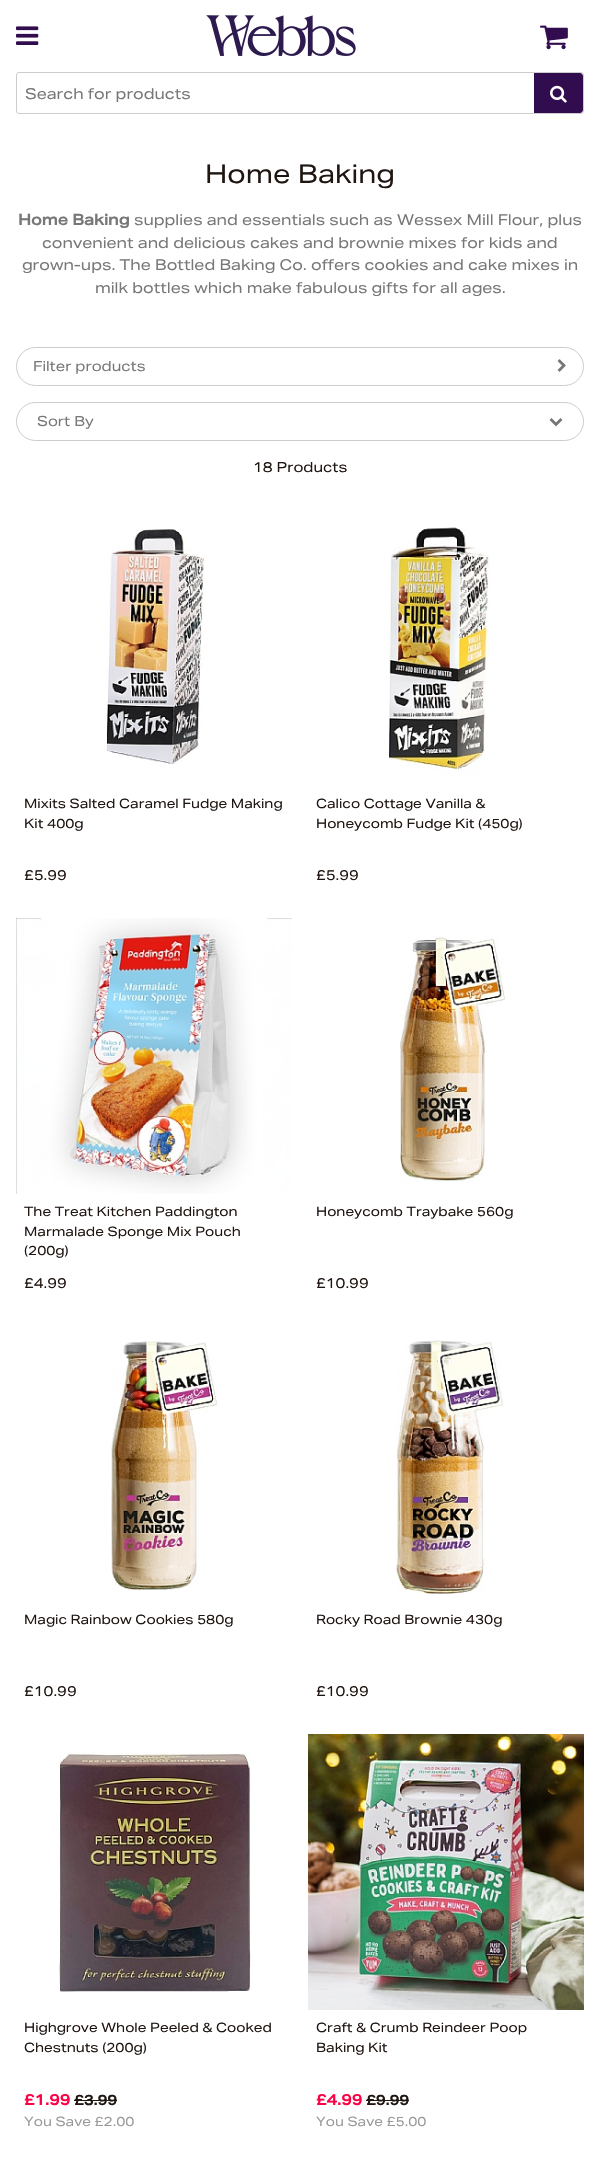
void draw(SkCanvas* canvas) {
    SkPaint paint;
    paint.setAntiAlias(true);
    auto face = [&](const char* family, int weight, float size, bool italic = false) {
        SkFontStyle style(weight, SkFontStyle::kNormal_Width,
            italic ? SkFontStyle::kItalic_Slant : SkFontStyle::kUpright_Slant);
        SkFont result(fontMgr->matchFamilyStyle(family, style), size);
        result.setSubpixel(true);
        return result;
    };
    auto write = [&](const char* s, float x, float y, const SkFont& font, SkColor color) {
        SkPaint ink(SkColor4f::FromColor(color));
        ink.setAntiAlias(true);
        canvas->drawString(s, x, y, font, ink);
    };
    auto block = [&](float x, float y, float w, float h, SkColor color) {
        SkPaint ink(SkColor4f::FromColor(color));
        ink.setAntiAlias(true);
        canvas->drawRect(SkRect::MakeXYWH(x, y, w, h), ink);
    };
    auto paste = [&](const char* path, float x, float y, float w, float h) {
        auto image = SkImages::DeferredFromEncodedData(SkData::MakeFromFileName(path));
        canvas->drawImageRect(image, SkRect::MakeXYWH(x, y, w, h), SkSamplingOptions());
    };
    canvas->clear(SK_ColorWHITE);
    paste("pic1.png", 16, 26, 23, 19);
    paste("pic2.png", 206, 15, 150, 41);
    paste("pic3.png", 540, 25, 28, 25);
    paint.setStyle(SkPaint::kStroke_Style);
    paint.setStrokeWidth(1);
    paint.setColor(SkColorSetRGB(204, 204, 204));
    canvas->drawRoundRect(SkRect::MakeXYWH(16.5f, 72.5f, 567, 41), 2.5f, 2.5f, paint);
    paint.setStyle(SkPaint::kFill_Style);
    paint.setColor(SK_ColorWHITE);
    canvas->drawPath(SkPathBuilder().moveTo(20, 73).lineTo(534, 73).lineTo(534, 113).lineTo(20, 113).cubicTo(18.5f, 113, 17, 111.5f, 17, 110).lineTo(17, 76).cubicTo(17, 74.5f, 18.5f, 73, 20, 73).close().detach(), paint);
    auto kFont1 = face("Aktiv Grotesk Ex", 400, 15);
    write("Search for products", 25, 99, kFont1, SkColorSetRGB(119, 119, 119));
    paint.setColor(SkColorSetRGB(49, 13, 79));
    canvas->drawPath(SkPathBuilder().moveTo(534, 73).lineTo(580, 73).cubicTo(581.5f, 73, 583, 74.5f, 583, 76).lineTo(583, 110).cubicTo(583, 111.5f, 581.5f, 113, 580, 113).lineTo(534, 113).close().detach(), paint);
    paste("pic4.png", 550, 85, 17, 18);
    auto kFont2 = face("Aktiv Grotesk Ex", 400, 26);
    write("Home Baking", 205, 183, kFont2, SkColorSetRGB(31, 21, 17));
    auto kFont3 = face("Aktiv Grotesk Ex", 700, 15);
    write("Home Baking", 18, 225, kFont3, SkColorSetRGB(119, 119, 119));
    write("supplies and essentials such as Wessex Mill Flour, plus", 134, 225, kFont1, SkColorSetRGB(119, 119, 119));
    write("convenient and delicious cakes and brownie mixes for kids and", 42, 248, kFont1, SkColorSetRGB(119, 119, 119));
    write("grown-ups. The Bottled Baking Co. offers cookies and cake mixes in", 22, 270, kFont1, SkColorSetRGB(119, 119, 119));
    write("milk bottles which make fabulous gifts for all ages.", 95, 293, kFont1, SkColorSetRGB(119, 119, 119));
    paint.setStyle(SkPaint::kStroke_Style);
    paint.setColor(SkColorSetRGB(204, 204, 204));
    canvas->drawRoundRect(SkRect::MakeXYWH(16.5f, 347.5f, 567, 38), 19, 19, paint);
    auto kFont4 = face("Aktiv Grotesk Ex", 400, 14);
    write("Filter products", 33, 371, kFont4, SkColorSetRGB(119, 119, 119));
    paste("pic5.png", 557, 359, 9, 13);
    canvas->drawRoundRect(SkRect::MakeXYWH(16.5f, 402.5f, 567, 38), 19, 19, paint);
    write("Sort By", 37, 426, kFont4, SkColorSetRGB(119, 119, 119));
    paste("pic6.png", 549, 418, 14, 9);
    write("18 Products", 253, 472, kFont4, SkColorSetRGB(31, 21, 17));
    paste("pic7.png", 106, 529, 99, 237);
    auto kFont5 = face("Aktiv Grotesk Ex", 400, 13);
    write("Mixits Salted Caramel Fudge Making", 24, 808, kFont5, SkColorSetRGB(31, 21, 17));
    write("Kit 400g", 24, 828, kFont5, SkColorSetRGB(31, 21, 17));
    write("£5.99", 24, 880, kFont4, SkColorSetRGB(31, 21, 17));
    paste("pic8.png", 389, 527, 101, 247);
    write("Calico Cottage Vanilla &", 316, 808, kFont5, SkColorSetRGB(31, 21, 17));
    write("Honeycomb Fudge Kit (450g)", 316, 828, kFont5, SkColorSetRGB(31, 21, 17));
    write("£5.99", 316, 880, kFont4, SkColorSetRGB(31, 21, 17));
    paste("pic9.png", 16, 918, 276, 276);
    write("The Treat Kitchen Paddington", 24, 1216, kFont5, SkColorSetRGB(31, 21, 17));
    write("Marmalade Sponge Mix Pouch", 24, 1236, kFont5, SkColorSetRGB(31, 21, 17));
    write("(200g)", 24, 1255, kFont5, SkColorSetRGB(31, 21, 17));
    write("£4.99", 24, 1288, kFont4, SkColorSetRGB(31, 21, 17));
    paste("pic10.png", 399, 936, 106, 246);
    write("Honeycomb Traybake 560g", 316, 1216, kFont5, SkColorSetRGB(31, 21, 17));
    write("£10.99", 316, 1288, kFont4, SkColorSetRGB(31, 21, 17));
    paste("pic11.png", 111, 1341, 109, 250);
    write("Magic Rainbow Cookies 580g", 24, 1624, kFont5, SkColorSetRGB(31, 21, 17));
    write("£10.99", 24, 1696, kFont4, SkColorSetRGB(31, 21, 17));
    paste("pic12.png", 396, 1340, 107, 254);
    write("Rocky Road Brownie 430g", 316, 1624, kFont5, SkColorSetRGB(31, 21, 17));
    write("£10.99", 316, 1696, kFont4, SkColorSetRGB(31, 21, 17));
    paste("pic13.png", 59, 1751, 192, 241);
    write("Highgrove Whole Peeled & Cooked", 24, 2032, kFont5, SkColorSetRGB(31, 21, 17));
    write("Chestnuts (200g)", 24, 2052, kFont5, SkColorSetRGB(31, 21, 17));
    write("£1.99", 24, 2105, kFont3, SkColorSetRGB(255, 0, 69));
    auto kFont6 = face("Aktiv Grotesk Ex", 700, 14);
    write("£3.99", 74, 2105, kFont6, SkColorSetRGB(31, 21, 17));
    block(74, 2100, 43, 1, SkColorSetRGB(31, 21, 17));
    write("You Save £2.00", 24, 2126, kFont5, SkColorSetRGB(153, 153, 153));
    paste("pic14.png", 308, 1734, 276, 276);
    write("Craft & Crumb Reindeer Poop", 316, 2032, kFont5, SkColorSetRGB(31, 21, 17));
    write("Baking Kit", 316, 2052, kFont5, SkColorSetRGB(31, 21, 17));
    write("£4.99", 316, 2105, kFont3, SkColorSetRGB(255, 0, 69));
    write("£9.99", 366, 2105, kFont6, SkColorSetRGB(31, 21, 17));
    block(366, 2100, 43, 1, SkColorSetRGB(31, 21, 17));
    write("You Save £5.00", 316, 2126, kFont5, SkColorSetRGB(153, 153, 153));
}
